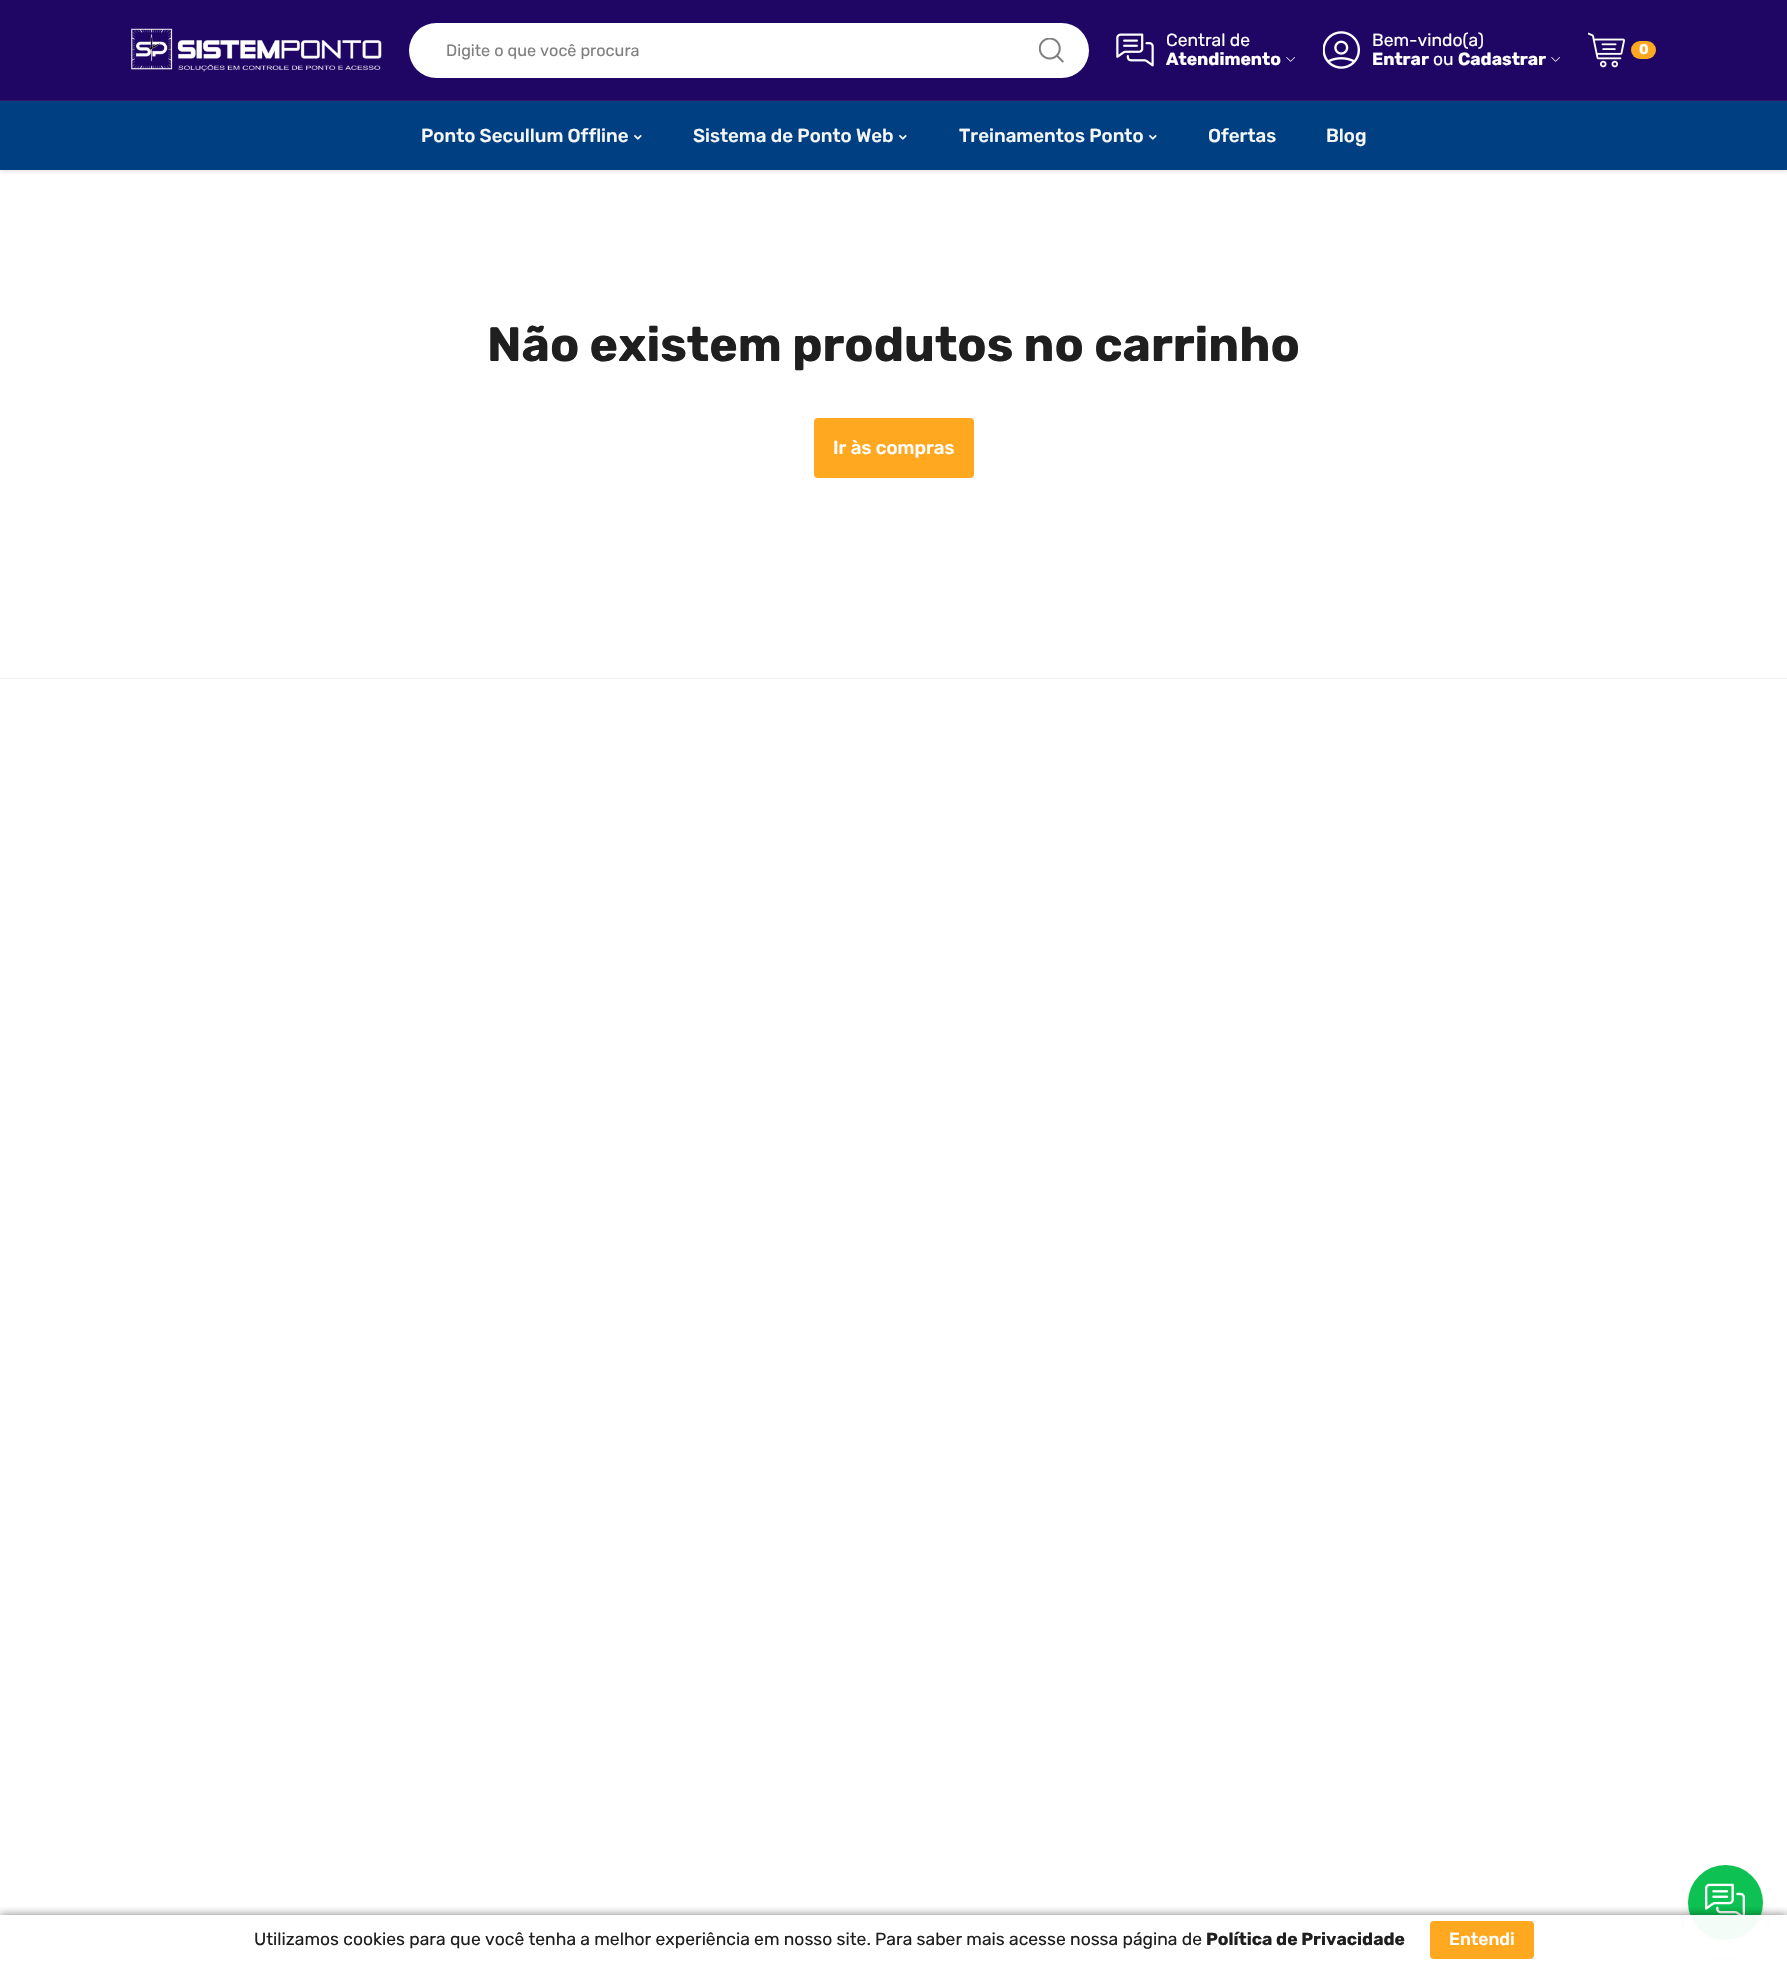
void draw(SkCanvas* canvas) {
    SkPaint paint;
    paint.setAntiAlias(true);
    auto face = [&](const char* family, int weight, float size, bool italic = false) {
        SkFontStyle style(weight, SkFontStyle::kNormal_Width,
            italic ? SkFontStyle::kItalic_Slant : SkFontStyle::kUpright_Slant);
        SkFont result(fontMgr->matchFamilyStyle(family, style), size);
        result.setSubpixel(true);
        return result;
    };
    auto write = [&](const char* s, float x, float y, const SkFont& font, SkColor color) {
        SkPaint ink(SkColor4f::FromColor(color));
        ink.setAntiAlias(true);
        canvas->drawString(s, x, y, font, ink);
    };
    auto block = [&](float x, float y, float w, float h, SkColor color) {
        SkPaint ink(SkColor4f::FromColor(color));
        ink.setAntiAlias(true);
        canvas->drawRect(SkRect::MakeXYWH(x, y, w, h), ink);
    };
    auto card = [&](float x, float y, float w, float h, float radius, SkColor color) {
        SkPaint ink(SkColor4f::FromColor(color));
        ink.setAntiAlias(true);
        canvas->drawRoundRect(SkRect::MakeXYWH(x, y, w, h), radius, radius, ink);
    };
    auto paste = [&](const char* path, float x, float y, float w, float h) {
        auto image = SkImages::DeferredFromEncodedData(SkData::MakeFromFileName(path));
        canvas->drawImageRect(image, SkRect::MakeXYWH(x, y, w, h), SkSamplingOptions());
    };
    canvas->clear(SK_ColorWHITE);
    paint.setColor(SkColorSetARGB(51, 82, 82, 82));
    paint.setMaskFilter(SkMaskFilter::MakeBlur(kNormal_SkBlurStyle, 2.5f));
    canvas->drawRect(SkRect::MakeXYWH(0, 103, 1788, 68), paint);
    paint.setMaskFilter(nullptr);
    block(0, 0, 1787, 100, SkColorSetRGB(32, 6, 100));
    block(0, 100, 1787, 1, SkColorSetRGB(47, 24, 106));
    paste("pic1.png", 131, 28, 251, 44);
    card(409, 23, 680, 55, 27.5f, SK_ColorWHITE);
    auto kFont1 = face("Rubik", 400, 16.25f);
    write("Digite o que você procura", 446, 56, kFont1, SkColorSetRGB(128, 128, 128));
    paste("pic2.png", 1039, 38, 25, 25);
    paste("pic3.png", 1116, 33, 38, 34);
    auto kFont2 = face("Rubik", 400, 17.5f);
    write("Central de", 1166, 46, kFont2, SK_ColorWHITE);
    auto kFont3 = face("Rubik", 700, 17.5f);
    write("Atendimento", 1166, 65, kFont3, SK_ColorWHITE);
    paste("pic4.png", 1286, 57, 9, 5);
    paste("pic5.png", 1323, 31, 37, 38);
    write("Bem-vindo(a)", 1372, 46, kFont2, SK_ColorWHITE);
    write("Entrar", 1372, 65, kFont3, SK_ColorWHITE);
    write("ou", 1433, 65, kFont2, SK_ColorWHITE);
    write("Cadastrar", 1458, 65, kFont3, SK_ColorWHITE);
    paste("pic4.png", 1551, 57, 9, 5);
    paste("pic6.png", 1588, 32, 37, 36);
    card(1631, 41, 25, 18, 9, SkColorSetRGB(255, 168, 32));
    auto kFont4 = face("Rubik", 700, 14);
    write("0", 1639, 54, kFont4, SK_ColorWHITE);
    block(0, 101, 1787, 69, SkColorSetRGB(0, 63, 130));
    auto kFont5 = face("Rubik", 500, 18.75f);
    write("Ponto Secullum Offline", 421, 142, kFont5, SkColorSetRGB(243, 246, 244));
    paste("pic7.png", 634, 135, 8, 5);
    write("Sistema de Ponto Web", 693, 142, kFont5, SkColorSetRGB(243, 246, 244));
    paste("pic7.png", 899, 135, 8, 5);
    write("Treinamentos Ponto", 959, 142, kFont5, SkColorSetRGB(243, 246, 244));
    paste("pic7.png", 1149, 135, 8, 5);
    write("Ofertas", 1208, 142, kFont5, SkColorSetRGB(243, 246, 244));
    write("Blog", 1326, 142, kFont5, SkColorSetRGB(243, 246, 244));
    auto kFont6 = face("Rubik", 700, 48.1f);
    write("Não existem produtos no carrinho", 487, 361, kFont6, SkColorSetRGB(32, 31, 31));
    card(814, 418, 160, 60, 4, SkColorSetRGB(255, 168, 32));
    write("Ir às compras", 833, 454, kFont5, SK_ColorWHITE);
    block(0, 678, 1787, 1, SkColorSetRGB(239, 239, 239));
    paint.setColor(SkColorSetARGB(26, 103, 103, 103));
    paint.setMaskFilter(SkMaskFilter::MakeBlur(kNormal_SkBlurStyle, 5));
    canvas->drawRoundRect(SkRect::MakeXYWH(1688, 1878, 75, 75), 37.5f, 37.5f, paint);
    paint.setMaskFilter(nullptr);
    paint.setColor(SkColorSetARGB(10, 0, 0, 0));
    paint.setMaskFilter(SkMaskFilter::MakeBlur(kNormal_SkBlurStyle, 0.5f));
    canvas->drawRoundRect(SkRect::MakeXYWH(1688, 1868, 75, 75), 37.5f, 37.5f, paint);
    paint.setMaskFilter(nullptr);
    paint.setColor(SkColorSetRGB(13, 193, 82));
    canvas->drawCircle(1725.5f, 1902.5f, 37.5f, paint);
    paste("pic8.png", 1705, 1883, 40, 36);
    canvas->save();
    canvas->clipRect(SkRect::MakeXYWH(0, 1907, 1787, 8));
    paint.setColor(SkColorSetARGB(128, 0, 0, 0));
    paint.setMaskFilter(SkMaskFilter::MakeBlur(kNormal_SkBlurStyle, 4.5f));
    canvas->drawRect(SkRect::MakeXYWH(0, 1915, 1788, 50), paint);
    paint.setMaskFilter(nullptr);
    canvas->restore();
    block(1684, 1915, 83, 42, SkColorSetARGB(242, 255, 255, 255));
    write("Utilizamos cookies para que você tenha a melhor experiência em nosso site. Para saber mais acesse nossa página de", 254, 1945, kFont2, SkColorSetRGB(32, 31, 31));
    write("Política de Privacidade", 1206, 1945, kFont3, SkColorSetRGB(32, 31, 31));
    card(1430, 1921, 104, 38, 4, SkColorSetRGB(255, 168, 32));
    auto kFont7 = face("Rubik", 500, 17.5f);
    write("Entendi", 1449, 1945, kFont7, SK_ColorWHITE);
}
